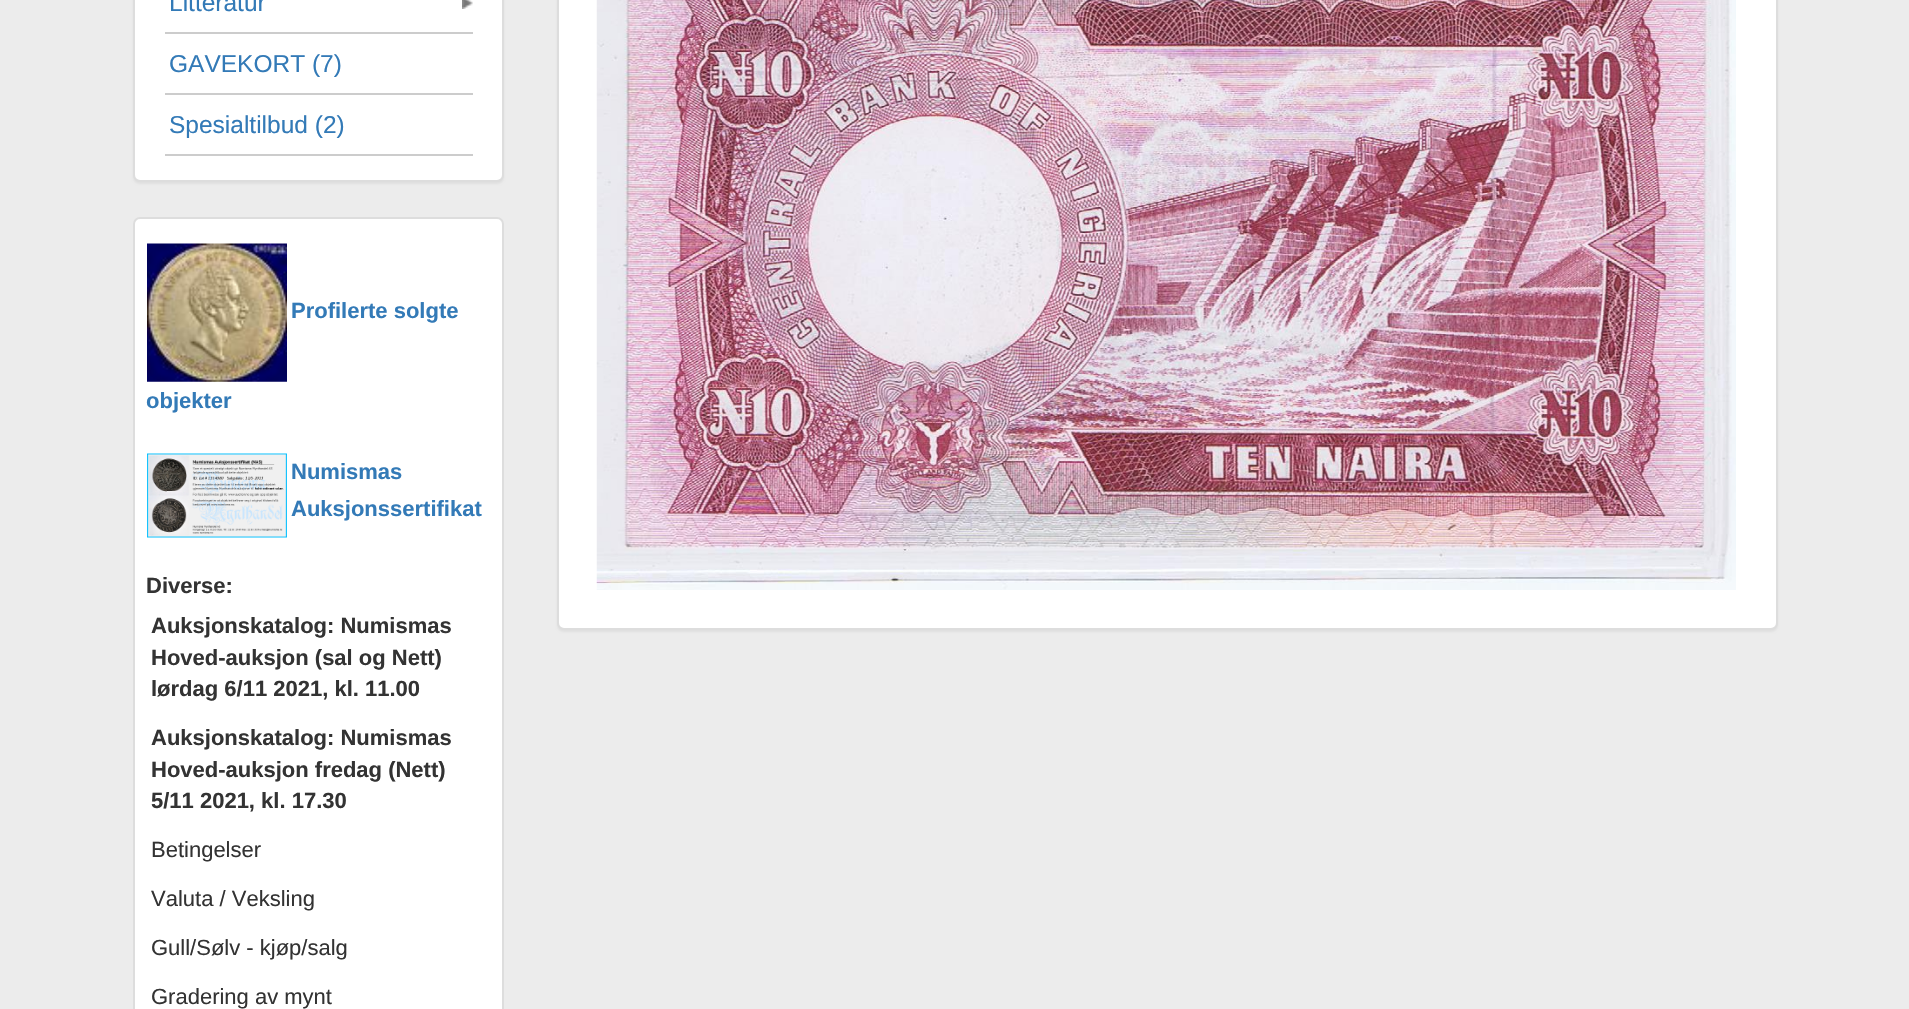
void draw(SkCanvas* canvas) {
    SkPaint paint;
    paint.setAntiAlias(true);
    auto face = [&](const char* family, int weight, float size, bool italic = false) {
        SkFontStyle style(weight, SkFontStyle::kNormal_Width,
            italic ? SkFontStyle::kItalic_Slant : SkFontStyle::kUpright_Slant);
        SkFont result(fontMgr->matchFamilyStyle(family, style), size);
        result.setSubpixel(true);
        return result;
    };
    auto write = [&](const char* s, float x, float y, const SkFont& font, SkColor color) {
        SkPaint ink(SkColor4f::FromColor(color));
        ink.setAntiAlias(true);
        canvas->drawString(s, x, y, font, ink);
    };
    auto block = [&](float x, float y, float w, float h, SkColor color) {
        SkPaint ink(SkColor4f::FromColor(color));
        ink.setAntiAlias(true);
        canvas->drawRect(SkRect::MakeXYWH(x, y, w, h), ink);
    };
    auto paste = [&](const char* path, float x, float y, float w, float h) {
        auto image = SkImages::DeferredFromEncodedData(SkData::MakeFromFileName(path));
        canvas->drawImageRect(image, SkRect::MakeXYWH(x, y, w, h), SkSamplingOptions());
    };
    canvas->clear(SkColorSetRGB(236, 236, 236));
    paint.setColor(SkColorSetARGB(13, 0, 0, 0));
    paint.setMaskFilter(SkMaskFilter::MakeBlur(kNormal_SkBlurStyle, 1));
    canvas->drawRoundRect(SkRect::MakeXYWH(133, -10, 371, 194), 7, 7, paint);
    paint.setMaskFilter(nullptr);
    paint.setColor(SK_ColorWHITE);
    canvas->drawRoundRect(SkRect::MakeXYWH(134, -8, 369, 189), 6, 6, paint);
    paint.setStyle(SkPaint::kStroke_Style);
    paint.setStrokeWidth(2);
    paint.setColor(SkColorSetRGB(221, 221, 221));
    canvas->drawRoundRect(SkRect::MakeXYWH(134, -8, 369, 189), 6, 6, paint);
    block(165, 32, 308, 2, SkColorSetRGB(204, 204, 204));
    paste("pic1.png", 462, 0, 11, 9);
    auto kFont1 = face("Liberation Sans", 400, 24.5f);
    write("Litteratur", 169, 11, kFont1, SkColorSetRGB(51, 122, 183));
    block(165, 93, 308, 2, SkColorSetRGB(204, 204, 204));
    write("GAVEKORT (7)", 169, 72, kFont1, SkColorSetRGB(51, 122, 183));
    block(165, 154, 308, 2, SkColorSetRGB(204, 204, 204));
    write("Spesialtilbud (2)", 169, 133, kFont1, SkColorSetRGB(51, 122, 183));
    paint.setStyle(SkPaint::kFill_Style);
    paint.setColor(SK_ColorWHITE);
    canvas->drawRoundRect(SkRect::MakeXYWH(134, 218, 369, 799), 6, 6, paint);
    paint.setStyle(SkPaint::kStroke_Style);
    paint.setColor(SkColorSetRGB(221, 221, 221));
    canvas->drawRoundRect(SkRect::MakeXYWH(134, 218, 369, 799), 6, 6, paint);
    paste("pic2.png", 147, 243, 140, 139);
    auto kFont2 = face("Liberation Sans", 700, 22);
    write("Profilerte solgte", 291, 318, kFont2, SkColorSetRGB(51, 122, 183));
    write("objekter", 146, 408, kFont2, SkColorSetRGB(51, 122, 183));
    paste("pic3.png", 147, 453, 140, 85);
    write("Numismas", 291, 479, kFont2, SkColorSetRGB(51, 122, 183));
    write("Auksjonssertifikat", 291, 516, kFont2, SkColorSetRGB(51, 122, 183));
    write("Diverse:", 146, 593, kFont2, SkColorSetRGB(51, 51, 51));
    write("Auksjonskatalog: Numismas", 151, 633, kFont2, SkColorSetRGB(51, 51, 51));
    write("Hoved-auksjon (sal og Nett)", 151, 665, kFont2, SkColorSetRGB(51, 51, 51));
    write("lørdag 6/11 2021, kl. 11.00", 151, 696, kFont2, SkColorSetRGB(51, 51, 51));
    write("Auksjonskatalog: Numismas", 151, 745, kFont2, SkColorSetRGB(51, 51, 51));
    write("Hoved-auksjon fredag (Nett)", 151, 777, kFont2, SkColorSetRGB(51, 51, 51));
    write("5/11 2021, kl. 17.30", 151, 808, kFont2, SkColorSetRGB(51, 51, 51));
    auto kFont3 = face("Liberation Sans", 400, 22);
    write("Betingelser", 151, 857, kFont3, SkColorSetRGB(51, 51, 51));
    write("Valuta / Veksling", 151, 906, kFont3, SkColorSetRGB(51, 51, 51));
    write("Gull/Sølv - kjøp/salg", 151, 955, kFont3, SkColorSetRGB(51, 51, 51));
    write("Gradering av mynt", 151, 1004, kFont3, SkColorSetRGB(51, 51, 51));
    paint.setStyle(SkPaint::kFill_Style);
    paint.setColor(SkColorSetARGB(13, 0, 0, 0));
    paint.setMaskFilter(SkMaskFilter::MakeBlur(kNormal_SkBlurStyle, 1));
    canvas->drawRoundRect(SkRect::MakeXYWH(557, -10, 1221, 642), 7, 7, paint);
    paint.setMaskFilter(nullptr);
    paint.setColor(SK_ColorWHITE);
    canvas->drawRoundRect(SkRect::MakeXYWH(558, -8, 1219, 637), 6, 6, paint);
    paint.setStyle(SkPaint::kStroke_Style);
    paint.setColor(SkColorSetRGB(221, 221, 221));
    canvas->drawRoundRect(SkRect::MakeXYWH(558, -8, 1219, 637), 6, 6, paint);
    paste("pic4.png", 596, 0, 1140, 590);
}
